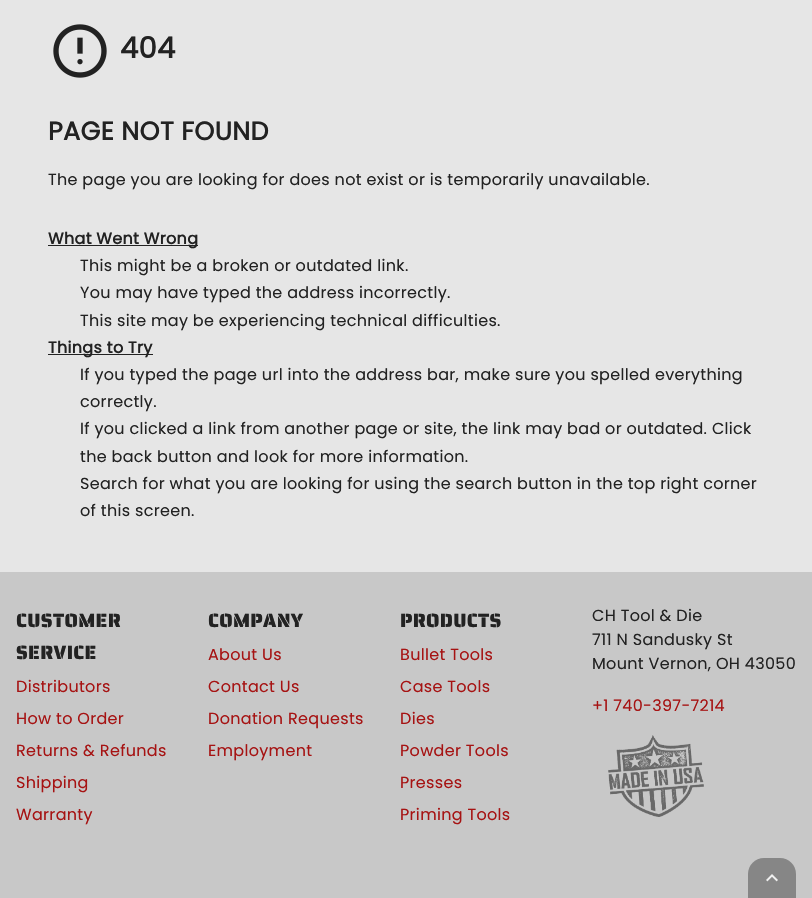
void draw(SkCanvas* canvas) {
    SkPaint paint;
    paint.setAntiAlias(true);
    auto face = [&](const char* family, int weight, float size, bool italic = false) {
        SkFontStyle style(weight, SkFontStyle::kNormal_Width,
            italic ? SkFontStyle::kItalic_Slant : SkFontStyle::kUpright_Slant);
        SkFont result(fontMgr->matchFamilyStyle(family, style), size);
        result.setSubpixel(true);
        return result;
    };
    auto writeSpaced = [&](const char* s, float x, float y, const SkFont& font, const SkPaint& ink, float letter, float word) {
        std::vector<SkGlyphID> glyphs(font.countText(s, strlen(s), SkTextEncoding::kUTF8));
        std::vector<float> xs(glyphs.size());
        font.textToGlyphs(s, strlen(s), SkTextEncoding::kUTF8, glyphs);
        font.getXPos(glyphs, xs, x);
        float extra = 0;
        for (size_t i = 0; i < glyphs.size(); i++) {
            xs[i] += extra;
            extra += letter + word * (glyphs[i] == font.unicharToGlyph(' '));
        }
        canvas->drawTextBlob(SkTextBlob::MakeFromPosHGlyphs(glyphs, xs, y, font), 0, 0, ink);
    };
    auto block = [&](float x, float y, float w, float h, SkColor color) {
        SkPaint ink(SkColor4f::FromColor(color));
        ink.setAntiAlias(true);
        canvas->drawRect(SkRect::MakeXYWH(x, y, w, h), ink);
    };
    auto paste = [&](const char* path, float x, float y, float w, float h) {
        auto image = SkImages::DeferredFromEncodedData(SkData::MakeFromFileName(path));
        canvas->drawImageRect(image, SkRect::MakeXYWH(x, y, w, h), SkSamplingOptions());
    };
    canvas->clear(SkColorSetRGB(200, 200, 200));
    block(0, 0, 812, 572, SkColorSetRGB(230, 230, 230));
    paste("pic1.png", 53, 24, 54, 54);
    auto kFont1 = face("Poppins", 700, 29);
    paint.setColor(SkColorSetRGB(34, 34, 34));
    writeSpaced("404", 120, 58, kFont1, paint, 0.32f, 0);
    auto kFont2 = face("Poppins", 700, 25.5f);
    writeSpaced("PAGE NOT FOUND", 48, 140, kFont2, paint, 0.32f, 0);
    auto kFont3 = face("Poppins", 400, 16);
    writeSpaced("The page you are looking for does not exist or is temporarily unavailable.", 48, 185, kFont3, paint, 0.32f, 0);
    block(48, 245, 150, 1, SkColorSetRGB(34, 34, 34));
    auto kFont4 = face("Poppins", 700, 16);
    writeSpaced("What Went Wrong", 48, 244, kFont4, paint, 0.32f, 0);
    writeSpaced("This might be a broken or outdated link.", 80, 271, kFont3, paint, 0.32f, 0);
    writeSpaced("You may have typed the address incorrectly.", 80, 298, kFont3, paint, 0.32f, 0);
    writeSpaced("This site may be experiencing technical difficulties.", 80, 326, kFont3, paint, 0.32f, 0);
    block(48, 354, 105, 1, SkColorSetRGB(34, 34, 34));
    writeSpaced("Things to Try", 48, 353, kFont4, paint, 0.32f, 0);
    writeSpaced("If you typed the page url into the address bar, make sure you spelled everything", 80, 380, kFont3, paint, 0.32f, 0);
    writeSpaced("correctly.", 80, 407, kFont3, paint, 0.32f, 0);
    writeSpaced("If you clicked a link from another page or site, the link may bad or outdated. Click", 80, 434, kFont3, paint, 0.32f, 0);
    writeSpaced("the back button and look for more information.", 80, 462, kFont3, paint, 0.32f, 0);
    writeSpaced("Search for what you are looking for using the search button in the top right corner", 80, 489, kFont3, paint, 0.32f, 0);
    writeSpaced("of this screen.", 80, 516, kFont3, paint, 0.32f, 0);
    auto kFont5 = face("Saira Stencil One", 400, 19.25f);
    writeSpaced("CUSTOMER", 16, 627, kFont5, paint, 0.32f, 0);
    writeSpaced("SERVICE", 16, 659, kFont5, paint, 0.32f, 0);
    paint.setColor(SkColorSetRGB(166, 19, 19));
    writeSpaced("Distributors", 16, 692, kFont3, paint, 0.32f, 0);
    writeSpaced("How to Order", 16, 724, kFont3, paint, 0.32f, 0);
    writeSpaced("Returns & Refunds", 16, 756, kFont3, paint, 0.32f, 0);
    writeSpaced("Shipping", 16, 788, kFont3, paint, 0.32f, 0);
    writeSpaced("Warranty", 16, 820, kFont3, paint, 0.32f, 0);
    paint.setColor(SkColorSetRGB(34, 34, 34));
    writeSpaced("COMPANY", 208, 627, kFont5, paint, 0.32f, 0);
    paint.setColor(SkColorSetRGB(166, 19, 19));
    writeSpaced("About Us", 208, 660, kFont3, paint, 0.32f, 0);
    writeSpaced("Contact Us", 208, 692, kFont3, paint, 0.32f, 0);
    writeSpaced("Donation Requests", 208, 724, kFont3, paint, 0.32f, 0);
    writeSpaced("Employment", 208, 756, kFont3, paint, 0.32f, 0);
    paint.setColor(SkColorSetRGB(34, 34, 34));
    writeSpaced("PRODUCTS", 400, 627, kFont5, paint, 0.32f, 0);
    paint.setColor(SkColorSetRGB(166, 19, 19));
    writeSpaced("Bullet Tools", 400, 660, kFont3, paint, 0.32f, 0);
    writeSpaced("Case Tools", 400, 692, kFont3, paint, 0.32f, 0);
    writeSpaced("Dies", 400, 724, kFont3, paint, 0.32f, 0);
    writeSpaced("Powder Tools", 400, 756, kFont3, paint, 0.32f, 0);
    writeSpaced("Presses", 400, 788, kFont3, paint, 0.32f, 0);
    writeSpaced("Priming Tools", 400, 820, kFont3, paint, 0.32f, 0);
    paint.setColor(SkColorSetRGB(34, 34, 34));
    writeSpaced("CH Tool & Die", 592, 621, kFont3, paint, 0.32f, 0);
    writeSpaced("711 N Sandusky St", 592, 645, kFont3, paint, 0.32f, 0);
    writeSpaced("Mount Vernon, OH 43050", 592, 669, kFont3, paint, 0.32f, 0);
    paint.setColor(SkColorSetRGB(166, 19, 19));
    writeSpaced("+1 740-397-7214", 592, 711, kFont3, paint, 0.32f, 0);
    paste("pic2.png", 608, 735, 96, 82);
    paint.setColor(SkColorSetRGB(134, 134, 134));
    canvas->drawPath(SkPathBuilder().moveTo(764, 858).lineTo(780, 858).cubicTo(789, 858, 796, 865, 796, 874).lineTo(796, 898).lineTo(748, 898).lineTo(748, 874).cubicTo(748, 865, 755, 858, 764, 858).close().detach(), paint);
    paste("pic3.png", 766, 874, 12, 8);
}
